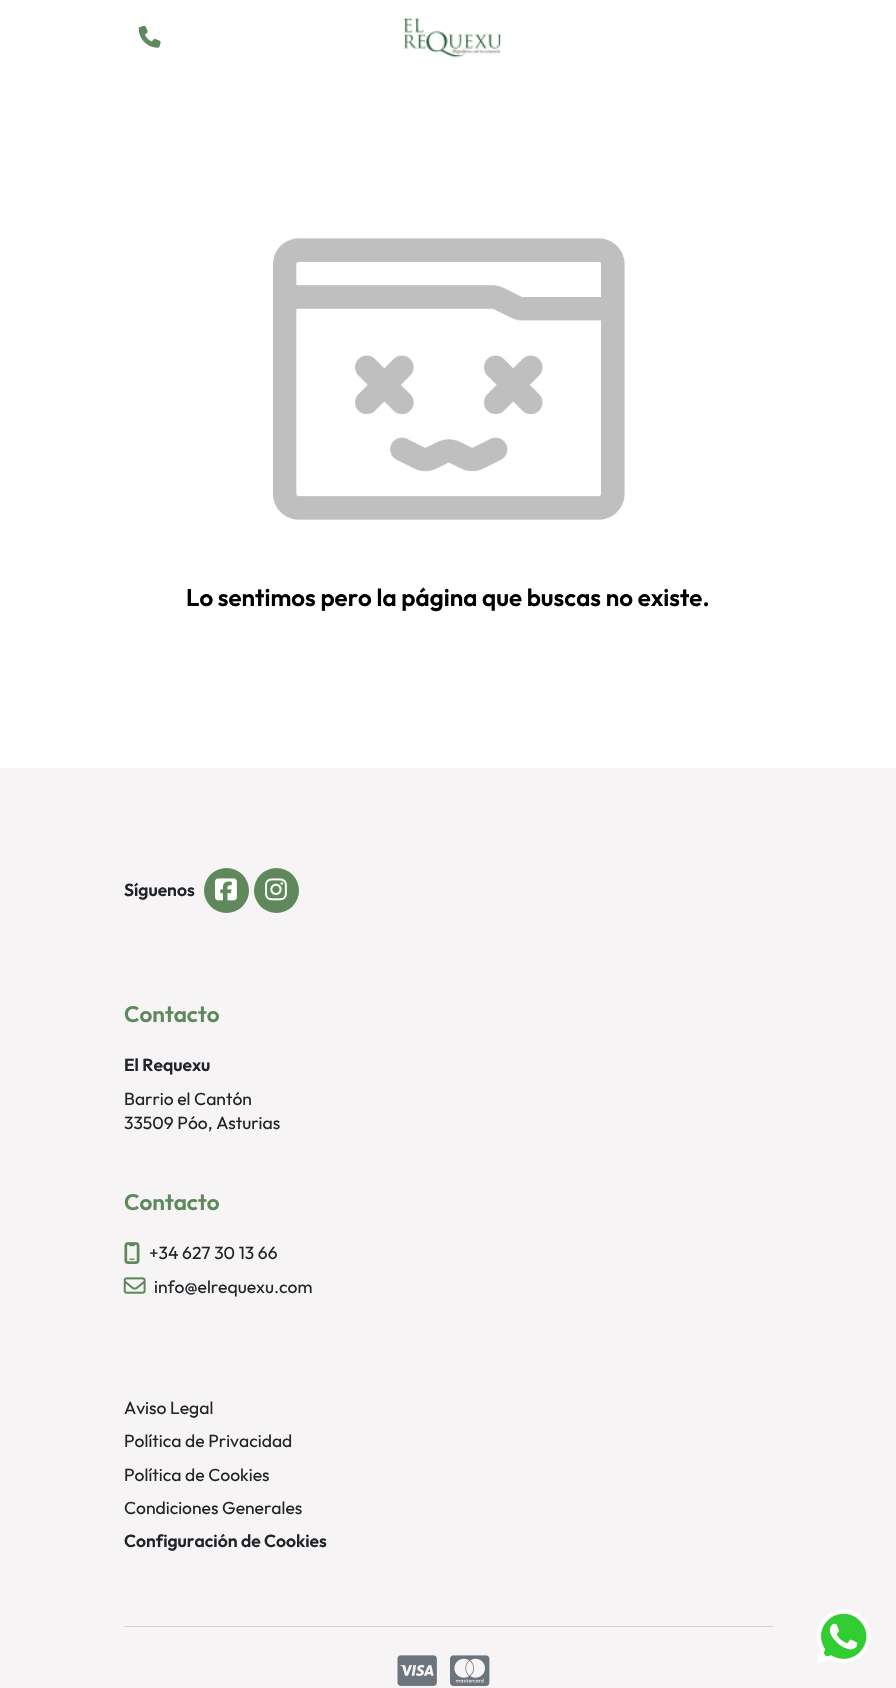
void draw(SkCanvas* canvas) {
    SkPaint paint;
    paint.setAntiAlias(true);
    auto face = [&](const char* family, int weight, float size, bool italic = false) {
        SkFontStyle style(weight, SkFontStyle::kNormal_Width,
            italic ? SkFontStyle::kItalic_Slant : SkFontStyle::kUpright_Slant);
        SkFont result(fontMgr->matchFamilyStyle(family, style), size);
        result.setSubpixel(true);
        return result;
    };
    auto write = [&](const char* s, float x, float y, const SkFont& font, SkColor color) {
        SkPaint ink(SkColor4f::FromColor(color));
        ink.setAntiAlias(true);
        canvas->drawString(s, x, y, font, ink);
    };
    auto block = [&](float x, float y, float w, float h, SkColor color) {
        SkPaint ink(SkColor4f::FromColor(color));
        ink.setAntiAlias(true);
        canvas->drawRect(SkRect::MakeXYWH(x, y, w, h), ink);
    };
    auto card = [&](float x, float y, float w, float h, float radius, SkColor color) {
        SkPaint ink(SkColor4f::FromColor(color));
        ink.setAntiAlias(true);
        canvas->drawRoundRect(SkRect::MakeXYWH(x, y, w, h), radius, radius, ink);
    };
    auto paste = [&](const char* path, float x, float y, float w, float h) {
        auto image = SkImages::DeferredFromEncodedData(SkData::MakeFromFileName(path));
        canvas->drawImageRect(image, SkRect::MakeXYWH(x, y, w, h), SkSamplingOptions());
    };
    canvas->clear(SK_ColorWHITE);
    paste("pic1.png", 138, 25, 23, 23);
    paste("pic2.png", 403, 17, 99, 41);
    paste("pic3.png", 273, 238, 352, 282);
    auto kFont1 = face("Outfit", 600, 24.1f);
    write("Lo sentimos pero la página que buscas no existe.", 186, 606, kFont1, SK_ColorBLACK);
    block(0, 768, 896, 920, SkColorSetRGB(246, 244, 245));
    auto kFont2 = face("Outfit", 600, 17.5f);
    write("Síguenos", 124, 896, kFont2, SkColorSetRGB(33, 37, 41));
    paint.setColor(SkColorSetRGB(95, 137, 92));
    canvas->drawCircle(226.5f, 890.5f, 22.5f, paint);
    paste("pic4.png", 215, 878, 22, 23);
    canvas->drawCircle(276.5f, 890.5f, 22.5f, paint);
    paste("pic5.png", 265, 878, 22, 23);
    auto kFont3 = face("Outfit", 600, 22.5f);
    write("Contacto", 124, 1022, kFont3, SkColorSetRGB(95, 137, 92));
    write("El Requexu", 124, 1071, kFont2, SkColorSetRGB(33, 37, 41));
    auto kFont4 = face("Outfit", 400, 17.5f);
    write("Barrio el Cantón", 124, 1105, kFont4, SkColorSetRGB(33, 37, 41));
    write("33509 Póo, Asturias", 124, 1129, kFont4, SkColorSetRGB(33, 37, 41));
    write("Contacto", 124, 1210, kFont3, SkColorSetRGB(95, 137, 92));
    paste("pic6.png", 124, 1242, 16, 22);
    write("+34 627 30 13 66", 149, 1259, kFont4, SkColorSetRGB(33, 37, 41));
    paste("pic7.png", 123, 1277, 23, 17);
    write("info@elrequexu.com", 154, 1293, kFont4, SkColorSetRGB(33, 37, 41));
    write("Aviso Legal", 124, 1414, kFont4, SkColorSetRGB(33, 37, 41));
    write("Política de Privacidad", 124, 1447, kFont4, SkColorSetRGB(33, 37, 41));
    write("Política de Cookies", 124, 1481, kFont4, SkColorSetRGB(33, 37, 41));
    write("Condiciones Generales", 124, 1514, kFont4, SkColorSetRGB(33, 37, 41));
    write("Configuración de Cookies", 124, 1547, kFont2, SkColorSetRGB(33, 37, 41));
    block(124, 1626, 649, 1, SkColorSetRGB(212, 212, 212));
    paste("pic8.png", 397, 1655, 40, 31);
    paste("pic9.png", 450, 1655, 40, 31);
    card(818, 1610, 52, 53, 26, SkColorSetRGB(50, 205, 50));
    paste("pic10.png", 816, 1609, 55, 55);
}
